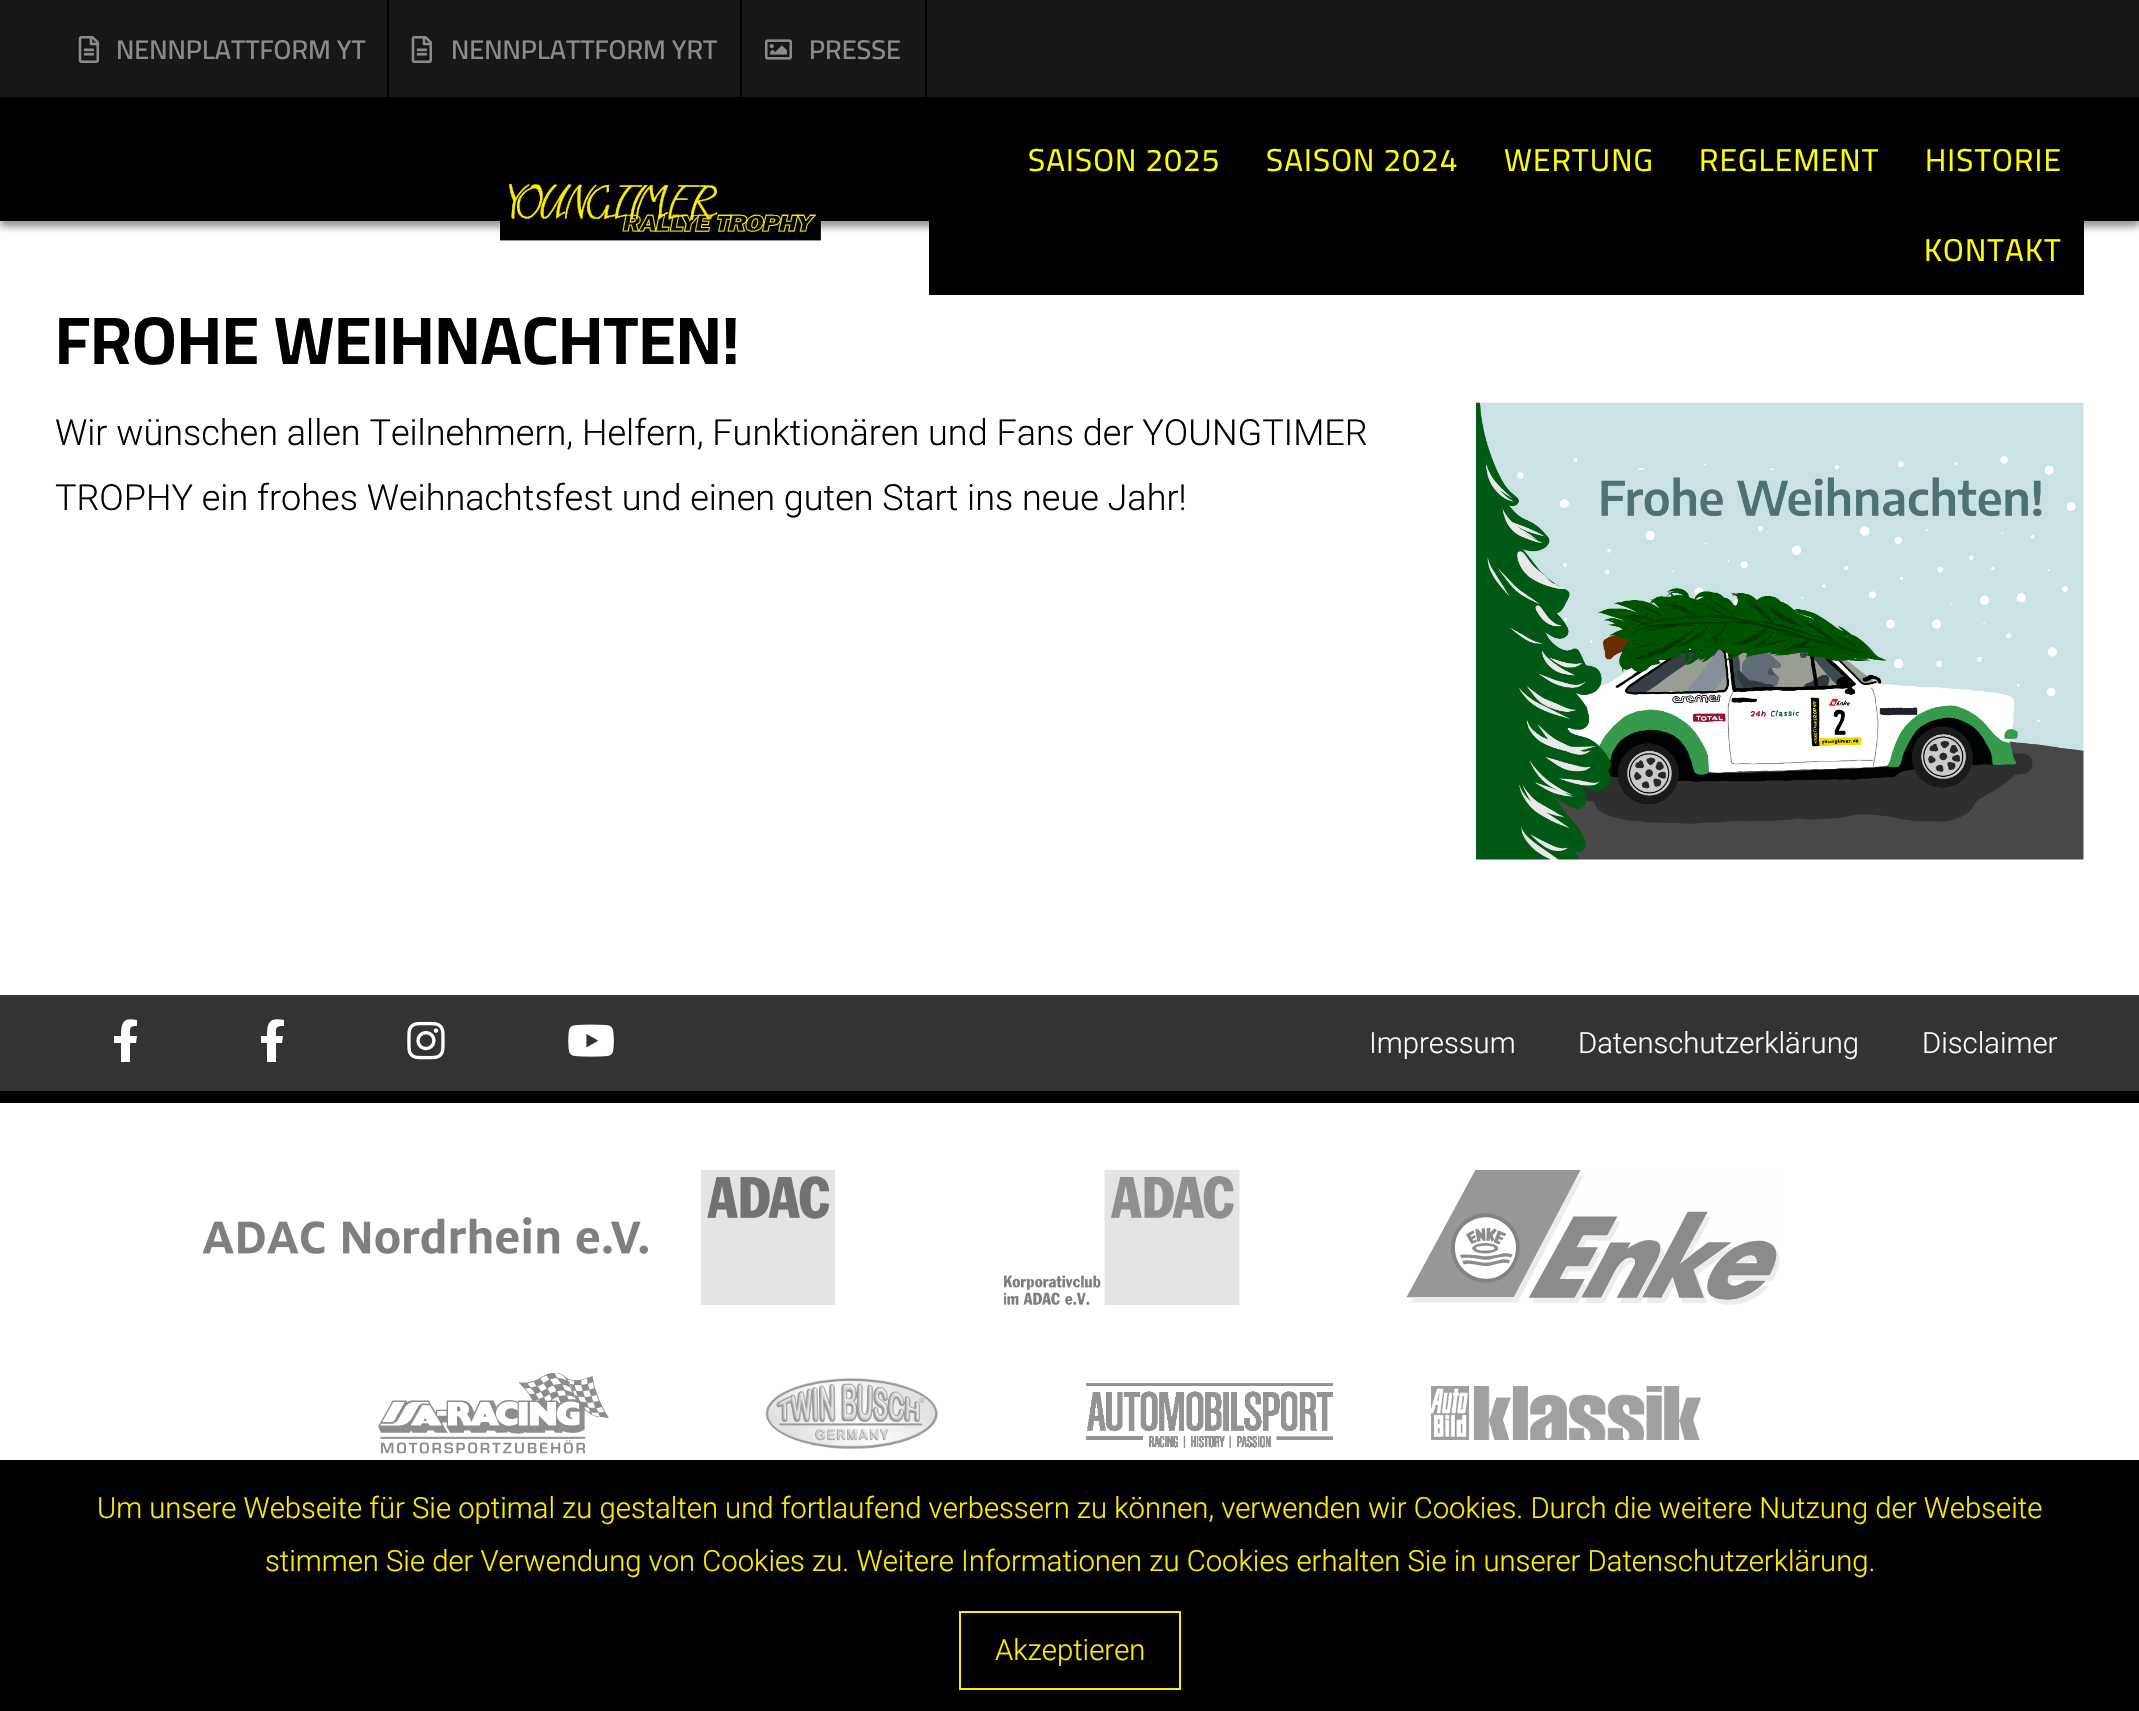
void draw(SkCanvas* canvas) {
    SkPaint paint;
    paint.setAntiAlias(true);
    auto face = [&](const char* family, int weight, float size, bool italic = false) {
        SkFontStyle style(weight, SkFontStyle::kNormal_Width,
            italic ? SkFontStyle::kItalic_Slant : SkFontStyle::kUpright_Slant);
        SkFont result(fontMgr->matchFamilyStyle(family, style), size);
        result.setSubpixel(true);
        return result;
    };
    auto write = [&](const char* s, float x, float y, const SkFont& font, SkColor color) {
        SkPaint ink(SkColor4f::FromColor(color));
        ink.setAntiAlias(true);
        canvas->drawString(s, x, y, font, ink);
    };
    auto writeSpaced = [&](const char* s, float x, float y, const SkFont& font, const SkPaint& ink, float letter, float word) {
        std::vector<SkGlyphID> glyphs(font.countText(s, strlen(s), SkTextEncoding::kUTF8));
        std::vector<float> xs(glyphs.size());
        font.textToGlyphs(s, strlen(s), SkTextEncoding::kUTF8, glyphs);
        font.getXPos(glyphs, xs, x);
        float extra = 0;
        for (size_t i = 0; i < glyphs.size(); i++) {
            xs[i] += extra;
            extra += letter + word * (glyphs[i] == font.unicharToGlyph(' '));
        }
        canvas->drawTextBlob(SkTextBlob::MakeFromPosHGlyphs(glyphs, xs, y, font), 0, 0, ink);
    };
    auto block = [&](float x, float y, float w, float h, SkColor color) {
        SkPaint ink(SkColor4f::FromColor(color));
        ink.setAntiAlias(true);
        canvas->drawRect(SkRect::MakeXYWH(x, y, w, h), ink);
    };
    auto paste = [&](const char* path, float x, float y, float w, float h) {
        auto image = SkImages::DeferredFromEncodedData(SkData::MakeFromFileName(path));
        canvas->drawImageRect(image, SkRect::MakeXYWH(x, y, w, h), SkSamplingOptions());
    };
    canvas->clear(SK_ColorWHITE);
    paint.setColor(SkColorSetARGB(102, 0, 0, 0));
    paint.setMaskFilter(SkMaskFilter::MakeBlur(kNormal_SkBlurStyle, 3.5f));
    canvas->drawRect(SkRect::MakeXYWH(0, 104, 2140, 123), paint);
    paint.setMaskFilter(nullptr);
    block(0, 0, 2139, 97, SkColorSetRGB(23, 23, 23));
    block(387, 0, 2, 97, SK_ColorBLACK);
    paste("pic1.png", 78, 36, 21, 27);
    auto kFont1 = face("Cairo", 600, 27);
    write("NENNPLATTFORM YT", 116, 59, kFont1, SkColorSetRGB(139, 139, 139));
    block(740, 0, 2, 97, SK_ColorBLACK);
    paste("pic1.png", 411, 36, 21, 27);
    write("NENNPLATTFORM YRT", 451, 59, kFont1, SkColorSetRGB(139, 139, 139));
    block(925, 0, 2, 97, SK_ColorBLACK);
    paste("pic2.png", 765, 39, 27, 21);
    write("PRESSE", 809, 59, kFont1, SkColorSetRGB(139, 139, 139));
    block(0, 97, 2139, 124, SK_ColorBLACK);
    paste("pic3.png", 500, 184, 321, 57);
    block(929, 221, 1155, 74, SK_ColorBLACK);
    auto kFont2 = face("Cairo", 400, 31.5f);
    paint.setColor(SkColorSetRGB(255, 255, 0));
    writeSpaced("SAISON 2025", 1028, 171, kFont2, paint, 1.1f, 0);
    writeSpaced("SAISON 2024", 1266, 171, kFont2, paint, 1.1f, 0);
    writeSpaced("WERTUNG", 1504, 171, kFont2, paint, 1.1f, 0);
    writeSpaced("REGLEMENT", 1699, 171, kFont2, paint, 1.1f, 0);
    writeSpaced("HISTORIE", 1925, 171, kFont2, paint, 1.1f, 0);
    writeSpaced("KONTAKT", 1924, 261, kFont2, paint, 1.1f, 0);
    auto kFont3 = face("Cairo", 700, 67.5f);
    write("FROHE WEIHNACHTEN!", 55, 364, kFont3, SK_ColorBLACK);
    auto kFont4 = face("Roboto", 300, 36);
    write("Wir wünschen allen Teilnehmern, Helfern, Funktionären und Fans der YOUNGTIMER", 55, 445, kFont4, SK_ColorBLACK);
    write("TROPHY ein frohes Weihnachtsfest und einen guten Start ins neue Jahr!", 55, 510, kFont4, SK_ColorBLACK);
    paste("pic4.png", 1476, 402, 608, 458);
    block(0, 995, 2139, 96, SkColorSetRGB(51, 51, 51));
    block(0, 1091, 2139, 12, SK_ColorBLACK);
    paint.setColor(SK_ColorWHITE);
    canvas->drawPath(SkPathBuilder().moveTo(136, 1043).lineTo(137, 1036).lineTo(130, 1036).cubicTo(130, 1028, 129, 1026, 137, 1026).lineTo(137, 1020).cubicTo(123, 1017, 121, 1023, 121, 1036).lineTo(114, 1036).lineTo(114, 1043).lineTo(121, 1043).lineTo(121, 1062).lineTo(130, 1062).lineTo(130, 1043).close().detach(), paint);
    canvas->drawPath(SkPathBuilder().moveTo(282, 1043).lineTo(283, 1036).lineTo(276, 1036).cubicTo(276, 1028, 275, 1026, 284, 1026).lineTo(284, 1020).cubicTo(269, 1017, 267, 1023, 267, 1036).lineTo(261, 1036).lineTo(261, 1043).lineTo(267, 1043).lineTo(267, 1062).lineTo(276, 1062).lineTo(276, 1043).close().detach(), paint);
    paste("pic5.png", 407, 1021, 38, 39);
    paste("pic6.png", 568, 1024, 46, 33);
    auto kFont5 = face("Roboto", 300, 29.25f);
    write("Impressum", 1369, 1053, kFont5, SK_ColorWHITE);
    write("Datenschutzerklärung", 1578, 1053, kFont5, SK_ColorWHITE);
    write("Disclaimer", 1922, 1053, kFont5, SK_ColorWHITE);
    paste("pic7.png", 203, 1170, 632, 135);
    paste("pic8.png", 1004, 1170, 236, 135);
    paste("pic9.png", 1406, 1170, 374, 135);
    paste("pic10.png", 378, 1373, 231, 81);
    paste("pic11.png", 765, 1378, 173, 71);
    paste("pic12.png", 1086, 1383, 247, 65);
    paste("pic13.png", 1431, 1386, 270, 54);
    block(0, 1460, 2139, 251, SK_ColorBLACK);
    write("Um unsere Webseite für Sie optimal zu gestalten und fortlaufend verbessern zu können, verwenden wir Cookies. Durch die weitere Nutzung der Webseite", 97, 1518, kFont5, SkColorSetRGB(255, 237, 0));
    write("stimmen Sie der Verwendung von Cookies zu. Weitere Informationen zu Cookies erhalten Sie in unserer Datenschutzerklärung.", 265, 1571, kFont5, SkColorSetRGB(255, 237, 0));
    paint.setStyle(SkPaint::kStroke_Style);
    paint.setStrokeWidth(2);
    paint.setColor(SkColorSetRGB(255, 237, 0));
    canvas->drawRect(SkRect::MakeXYWH(960, 1612, 220, 77), paint);
    write("Akzeptieren", 995, 1660, kFont5, SkColorSetRGB(255, 237, 0));
}
